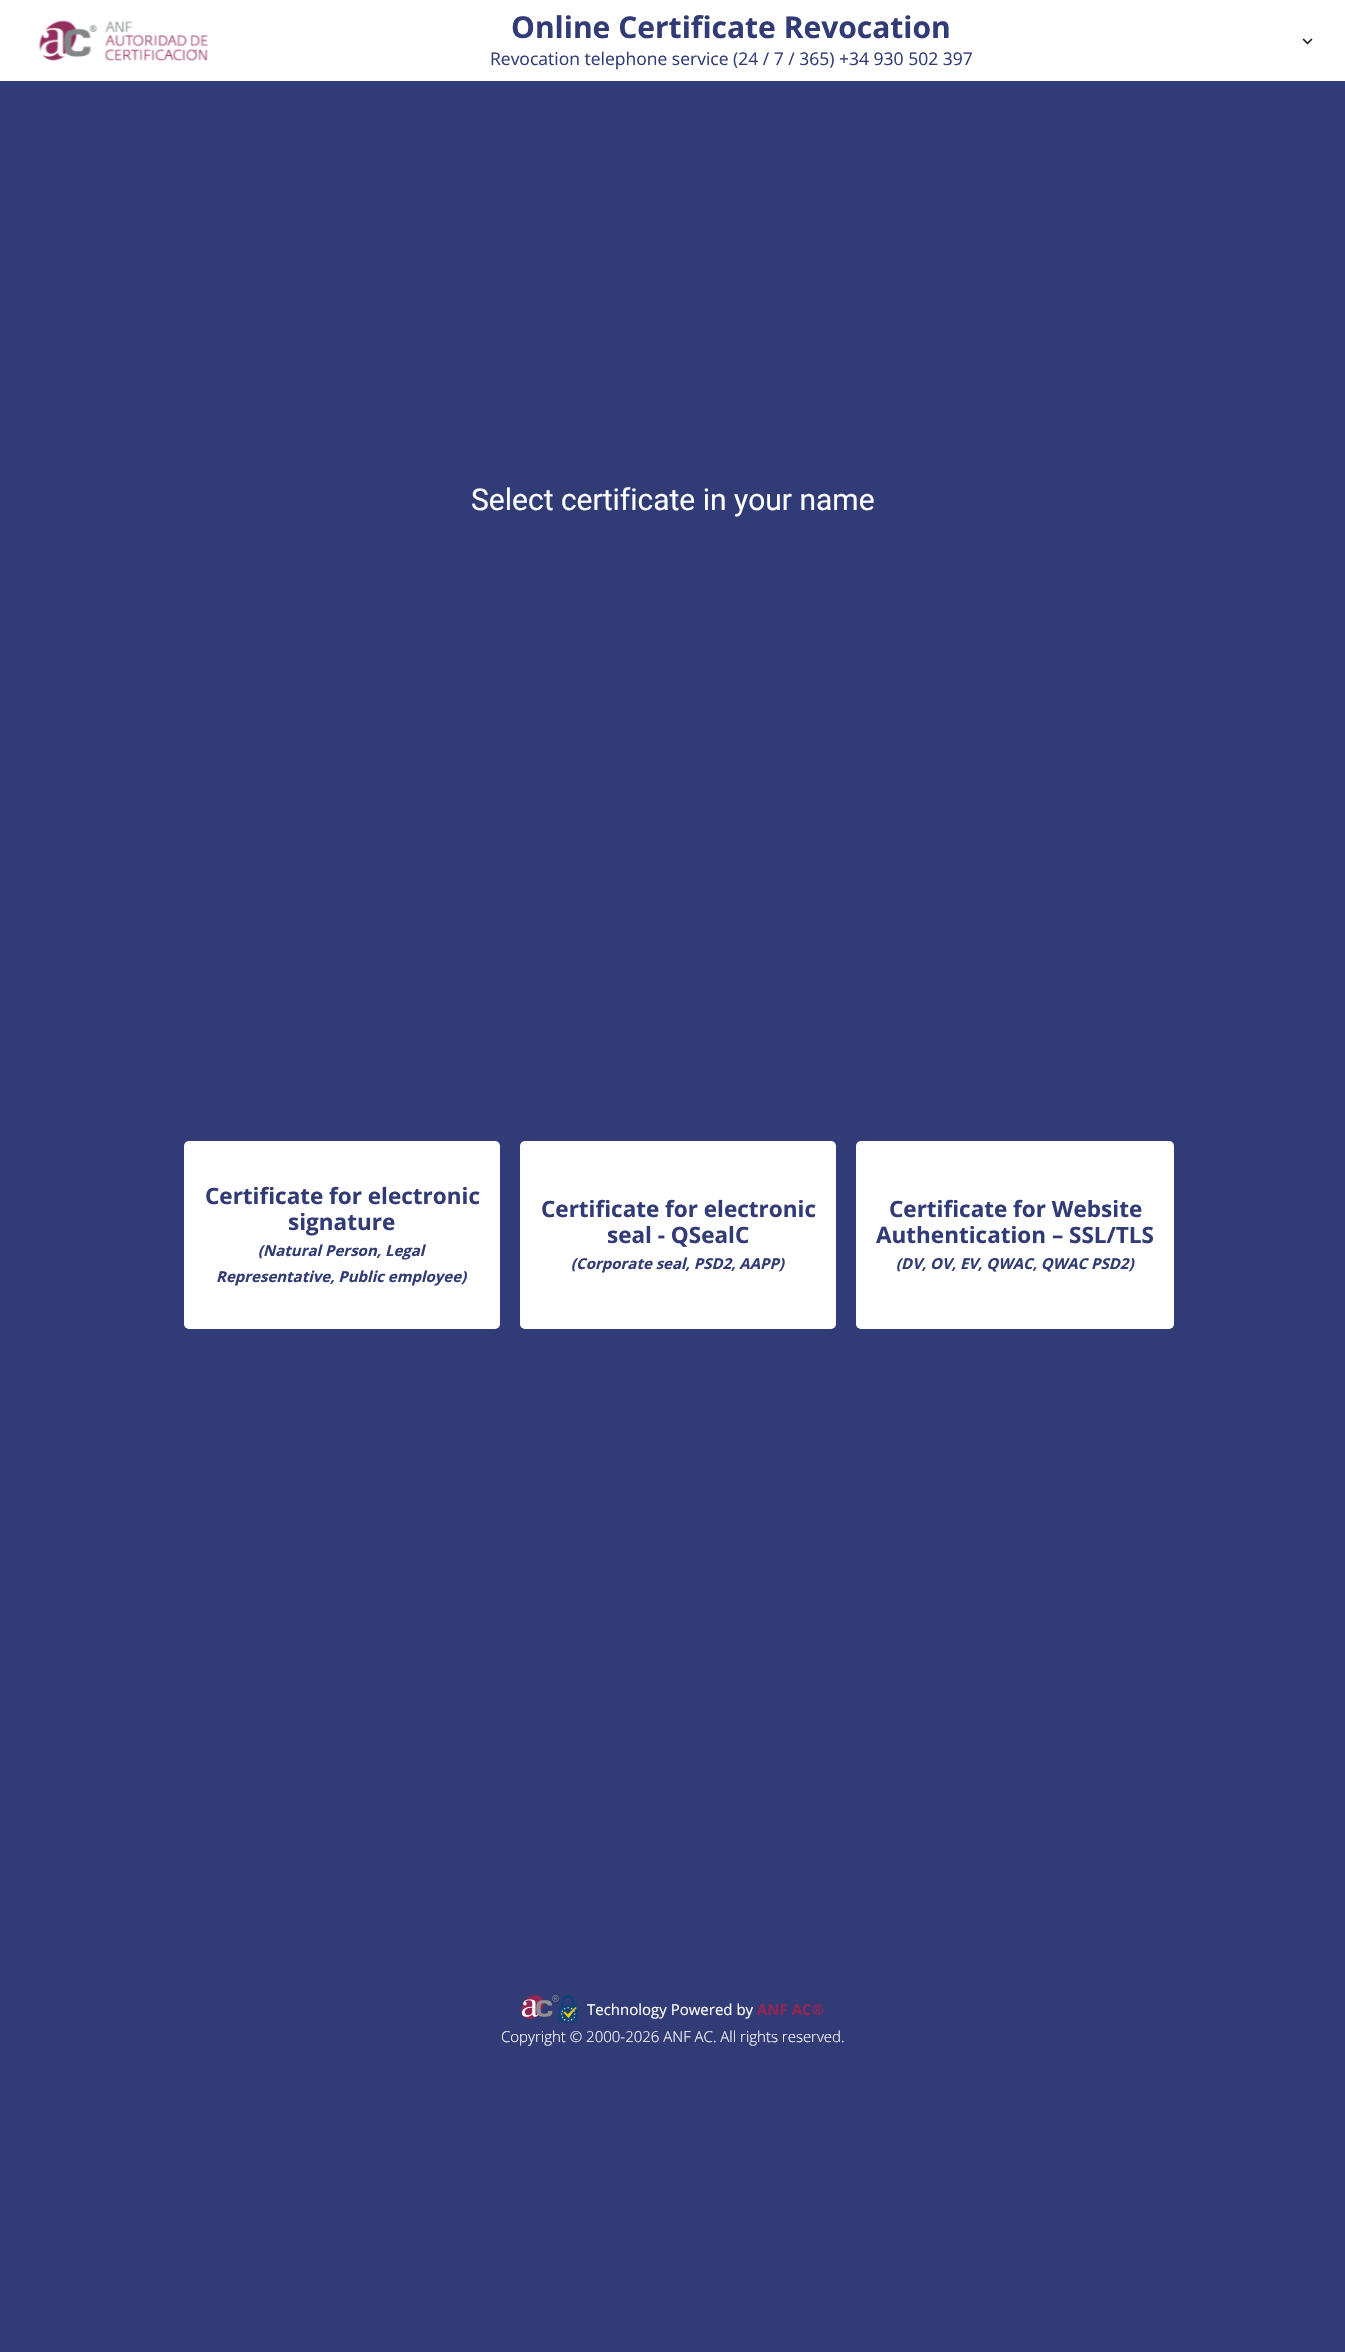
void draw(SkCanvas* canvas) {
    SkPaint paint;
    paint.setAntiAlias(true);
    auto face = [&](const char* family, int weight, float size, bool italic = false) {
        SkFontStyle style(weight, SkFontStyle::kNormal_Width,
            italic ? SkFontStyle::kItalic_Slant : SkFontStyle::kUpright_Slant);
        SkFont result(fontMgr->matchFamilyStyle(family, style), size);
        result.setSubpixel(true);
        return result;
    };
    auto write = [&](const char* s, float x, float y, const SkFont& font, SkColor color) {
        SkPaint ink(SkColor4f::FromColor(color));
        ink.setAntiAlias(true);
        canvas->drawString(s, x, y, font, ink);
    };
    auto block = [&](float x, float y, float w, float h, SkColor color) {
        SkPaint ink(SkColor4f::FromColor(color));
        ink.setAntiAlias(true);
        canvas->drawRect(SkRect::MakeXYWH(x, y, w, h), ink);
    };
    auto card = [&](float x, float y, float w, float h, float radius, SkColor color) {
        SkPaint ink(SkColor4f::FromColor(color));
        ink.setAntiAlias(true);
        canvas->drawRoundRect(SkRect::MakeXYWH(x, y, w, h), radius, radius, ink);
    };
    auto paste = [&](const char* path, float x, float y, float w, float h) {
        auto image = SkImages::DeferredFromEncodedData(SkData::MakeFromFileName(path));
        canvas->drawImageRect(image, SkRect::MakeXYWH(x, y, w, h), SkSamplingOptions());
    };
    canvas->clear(SK_ColorWHITE);
    paste("pic1.png", 38, 20, 171, 41);
    auto kFont1 = face("Open Sans", 700, 30);
    write("Online Certificate Revocation", 511, 38, kFont1, SkColorSetRGB(49, 59, 118));
    auto kFont2 = face("Open Sans", 400, 17.5f);
    write("Revocation telephone service (24 / 7 / 365) +34 930 502 397", 490, 65, kFont2, SkColorSetRGB(49, 59, 118));
    paste("pic2.png", 1302, 38, 11, 7);
    block(0, 81, 1345, 2271, SkColorSetRGB(49, 59, 118));
    auto kFont3 = face("Roboto", 400, 30);
    write("Select certificate in your name", 471, 510, kFont3, SK_ColorWHITE);
    card(184, 1141, 316, 188, 5, SK_ColorWHITE);
    auto kFont4 = face("Open Sans", 700, 22.5f);
    write("Certificate for electronic", 205, 1204, kFont4, SkColorSetRGB(49, 59, 118));
    write("signature", 288, 1230, kFont4, SkColorSetRGB(49, 59, 118));
    auto kFont5 = face("Open Sans", 700, 15, true);
    write("(Natural Person, Legal", 258, 1256, kFont5, SkColorSetRGB(49, 59, 118));
    write("Representative, Public employee)", 216, 1282, kFont5, SkColorSetRGB(49, 59, 118));
    card(520, 1141, 316, 188, 5, SK_ColorWHITE);
    write("Certificate for electronic", 541, 1217, kFont4, SkColorSetRGB(49, 59, 118));
    write("seal - QSealC", 607, 1243, kFont4, SkColorSetRGB(49, 59, 118));
    write("(Corporate seal, PSD2, AAPP)", 571, 1269, kFont5, SkColorSetRGB(49, 59, 118));
    card(856, 1141, 318, 188, 5, SK_ColorWHITE);
    write("Certificate for Website", 889, 1217, kFont4, SkColorSetRGB(49, 59, 118));
    write("Authentication – SSL/TLS", 876, 1243, kFont4, SkColorSetRGB(49, 59, 118));
    write("(DV, OV, EV, QWAC, QWAC PSD2)", 896, 1269, kFont5, SkColorSetRGB(49, 59, 118));
    paste("pic3.png", 521, 1995, 38, 24);
    paste("pic4.png", 558, 1995, 20, 28);
    auto kFont6 = face("Open Sans", 400, 15);
    write("Technology Powered by", 587, 2015, kFont6, SK_ColorWHITE);
    auto kFont7 = face("Open Sans", 700, 15);
    write("ANF AC®", 757, 2015, kFont7, SkColorSetRGB(148, 36, 82));
    auto kFont8 = face("Open Sans", 300, 15);
    write("Copyright © 2000-2026 ANF AC. All rights reserved.", 501, 2042, kFont8, SK_ColorWHITE);
}
